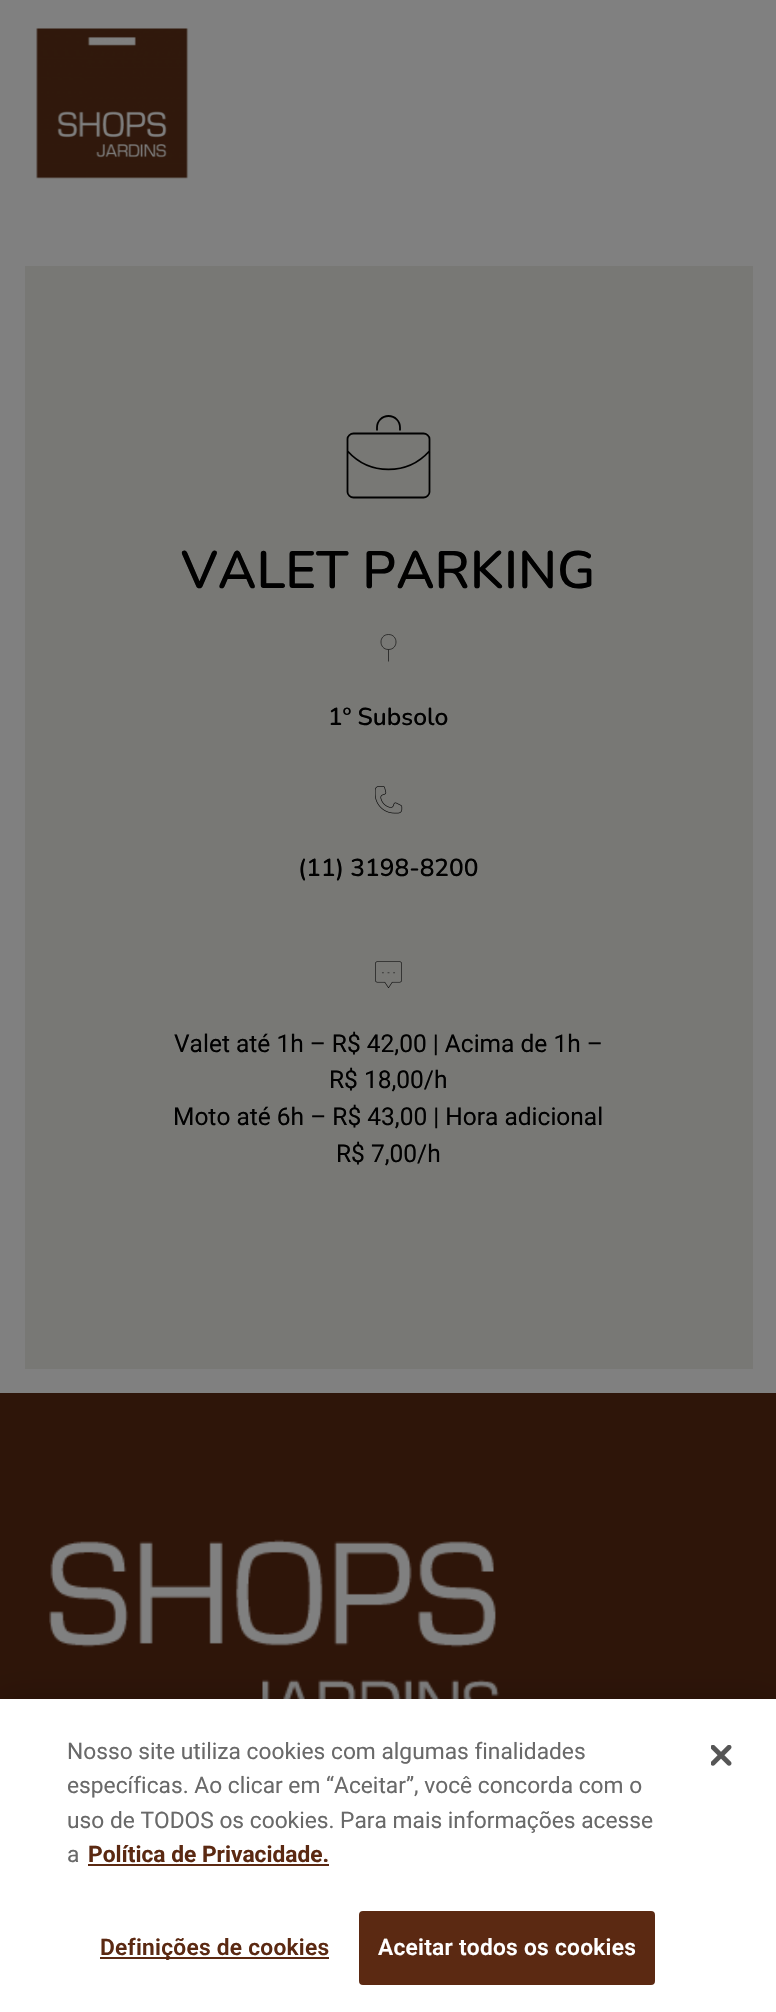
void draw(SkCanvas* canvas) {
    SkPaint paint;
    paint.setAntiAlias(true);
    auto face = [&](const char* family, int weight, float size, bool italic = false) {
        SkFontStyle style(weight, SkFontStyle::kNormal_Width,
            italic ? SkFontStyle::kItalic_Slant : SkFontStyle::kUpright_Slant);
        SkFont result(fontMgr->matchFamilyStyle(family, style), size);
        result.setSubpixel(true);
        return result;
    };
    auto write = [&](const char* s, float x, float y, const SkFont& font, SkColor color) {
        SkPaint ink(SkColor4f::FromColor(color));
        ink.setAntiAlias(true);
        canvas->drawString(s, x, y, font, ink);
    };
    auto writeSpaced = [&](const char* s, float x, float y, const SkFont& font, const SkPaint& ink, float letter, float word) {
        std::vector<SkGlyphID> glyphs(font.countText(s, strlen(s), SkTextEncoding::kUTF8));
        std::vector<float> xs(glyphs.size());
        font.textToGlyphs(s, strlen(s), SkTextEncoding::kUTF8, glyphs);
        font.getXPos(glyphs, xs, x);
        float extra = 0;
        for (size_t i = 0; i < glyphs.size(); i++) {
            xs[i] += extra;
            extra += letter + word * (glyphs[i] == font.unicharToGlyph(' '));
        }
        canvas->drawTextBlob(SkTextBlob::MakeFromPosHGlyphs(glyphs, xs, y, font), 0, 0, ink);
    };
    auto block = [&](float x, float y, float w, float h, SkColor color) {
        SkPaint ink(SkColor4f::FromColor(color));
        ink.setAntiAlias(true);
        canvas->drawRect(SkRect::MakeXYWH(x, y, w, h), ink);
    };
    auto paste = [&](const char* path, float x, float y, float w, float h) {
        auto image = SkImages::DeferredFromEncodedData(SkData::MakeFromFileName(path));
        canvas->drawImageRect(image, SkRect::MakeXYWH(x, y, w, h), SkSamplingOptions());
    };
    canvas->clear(SkColorSetRGB(128, 128, 128));
    paste("pic1.png", 36, 28, 153, 151);
    block(25, 266, 728, 1103, SkColorSetRGB(120, 120, 117));
    paint.setStyle(SkPaint::kStroke_Style);
    paint.setStrokeWidth(1.8f);
    paint.setColor(SK_ColorBLACK);
    canvas->drawPath(SkPathBuilder().moveTo(377, 430.5f).lineTo(377, 427.5f).cubicTo(377, 421, 382, 416, 388.5f, 416).cubicTo(395, 416, 400, 421, 400, 427.5f).lineTo(400, 430.5f).moveTo(347.5f, 451).cubicTo(369.5f, 475.5f, 407.5f, 475.5f, 429.5f, 451).moveTo(353.5f, 433.5f).lineTo(423.5f, 433.5f).cubicTo(426.5f, 433.5f, 429.5f, 436, 429.5f, 439).lineTo(429.5f, 492).cubicTo(429.5f, 495, 426.5f, 497.5f, 423.5f, 497.5f).lineTo(353.5f, 497.5f).cubicTo(350.5f, 497.5f, 347.5f, 495, 347.5f, 492).lineTo(347.5f, 439).cubicTo(347.5f, 436, 350.5f, 433.5f, 353.5f, 433.5f).close().detach(), paint);
    auto kFont1 = face("Nunito", 600, 52.5f);
    write("VALET PARKING", 181, 588, kFont1, SK_ColorBLACK);
    paint.setStrokeWidth(0.6f);
    canvas->drawPath(SkPathBuilder().moveTo(388.5f, 661.5f).lineTo(388.5f, 649.5f).moveTo(388.5f, 649.5f).cubicTo(398.5f, 649.5f, 398.5f, 634.5f, 388.5f, 634.5f).cubicTo(378.5f, 634.5f, 378.5f, 649.5f, 388.5f, 649.5f).close().detach(), paint);
    auto kFont2 = face("Nunito", 600, 24.5f);
    write("1º Subsolo", 328, 725, kFont2, SK_ColorBLACK);
    paste("pic2.png", 375, 786, 28, 28);
    write("(11) 3198-8200", 298, 876, kFont2, SK_ColorBLACK);
    paste("pic3.png", 375, 961, 27, 27);
    auto kFont3 = face("Roboto", 400, 24.5f);
    write("Valet até 1h – R$ 42,00 | Acima de 1h –", 174, 1052, kFont3, SK_ColorBLACK);
    write("R$ 18,00/h", 329, 1088, kFont3, SK_ColorBLACK);
    write("Moto até 6h – R$ 43,00 | Hora adicional", 173, 1125, kFont3, SK_ColorBLACK);
    write("R$ 7,00/h", 336, 1162, kFont3, SK_ColorBLACK);
    block(0, 1393, 776, 306, SkColorSetRGB(46, 21, 9));
    paste("pic4.png", 49, 1539, 451, 160);
    paint.setStyle(SkPaint::kFill_Style);
    paint.setColor(SkColorSetARGB(51, 0, 0, 0));
    paint.setMaskFilter(SkMaskFilter::MakeBlur(kNormal_SkBlurStyle, 16));
    canvas->drawRect(SkRect::MakeXYWH(0, 1699, 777, 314), paint);
    paint.setMaskFilter(nullptr);
    block(0, 1699, 776, 313, SK_ColorWHITE);
    auto kFont4 = face("Roboto", 400, 22.75f);
    write("Nosso site utiliza cookies com algumas finalidades", 67, 1759, kFont4, SkColorSetRGB(105, 105, 105));
    write("específicas. Ao clicar em “Aceitar”, você concorda com o", 67, 1793, kFont4, SkColorSetRGB(105, 105, 105));
    write("uso de TODOS os cookies. Para mais informações acesse", 67, 1828, kFont4, SkColorSetRGB(105, 105, 105));
    write("a", 67, 1862, kFont4, SkColorSetRGB(105, 105, 105));
    auto kFont5 = face("Roboto", 700, 22.75f);
    write("Política de Privacidade.", 88, 1862, kFont5, SkColorSetRGB(91, 41, 18));
    block(88, 1864, 241, 2, SkColorSetRGB(91, 41, 18));
    block(100, 1957, 229, 2, SkColorSetRGB(91, 41, 18));
    auto kFont6 = face("Roboto", 600, 22.75f);
    paint.setColor(SkColorSetRGB(91, 41, 18));
    writeSpaced("Definições de cookies", 100, 1955, kFont6, paint, 0.25f, 0);
    canvas->drawRoundRect(SkRect::MakeXYWH(360, 1912, 294, 72), 3, 3, paint);
    paint.setStyle(SkPaint::kStroke_Style);
    paint.setStrokeWidth(2);
    canvas->drawRoundRect(SkRect::MakeXYWH(360, 1912, 294, 72), 3, 3, paint);
    paint.setStyle(SkPaint::kFill_Style);
    paint.setColor(SK_ColorWHITE);
    writeSpaced("Aceitar todos os cookies", 378, 1955, kFont6, paint, 0.25f, 0);
    paste("pic5.png", 711, 1745, 21, 21);
}
